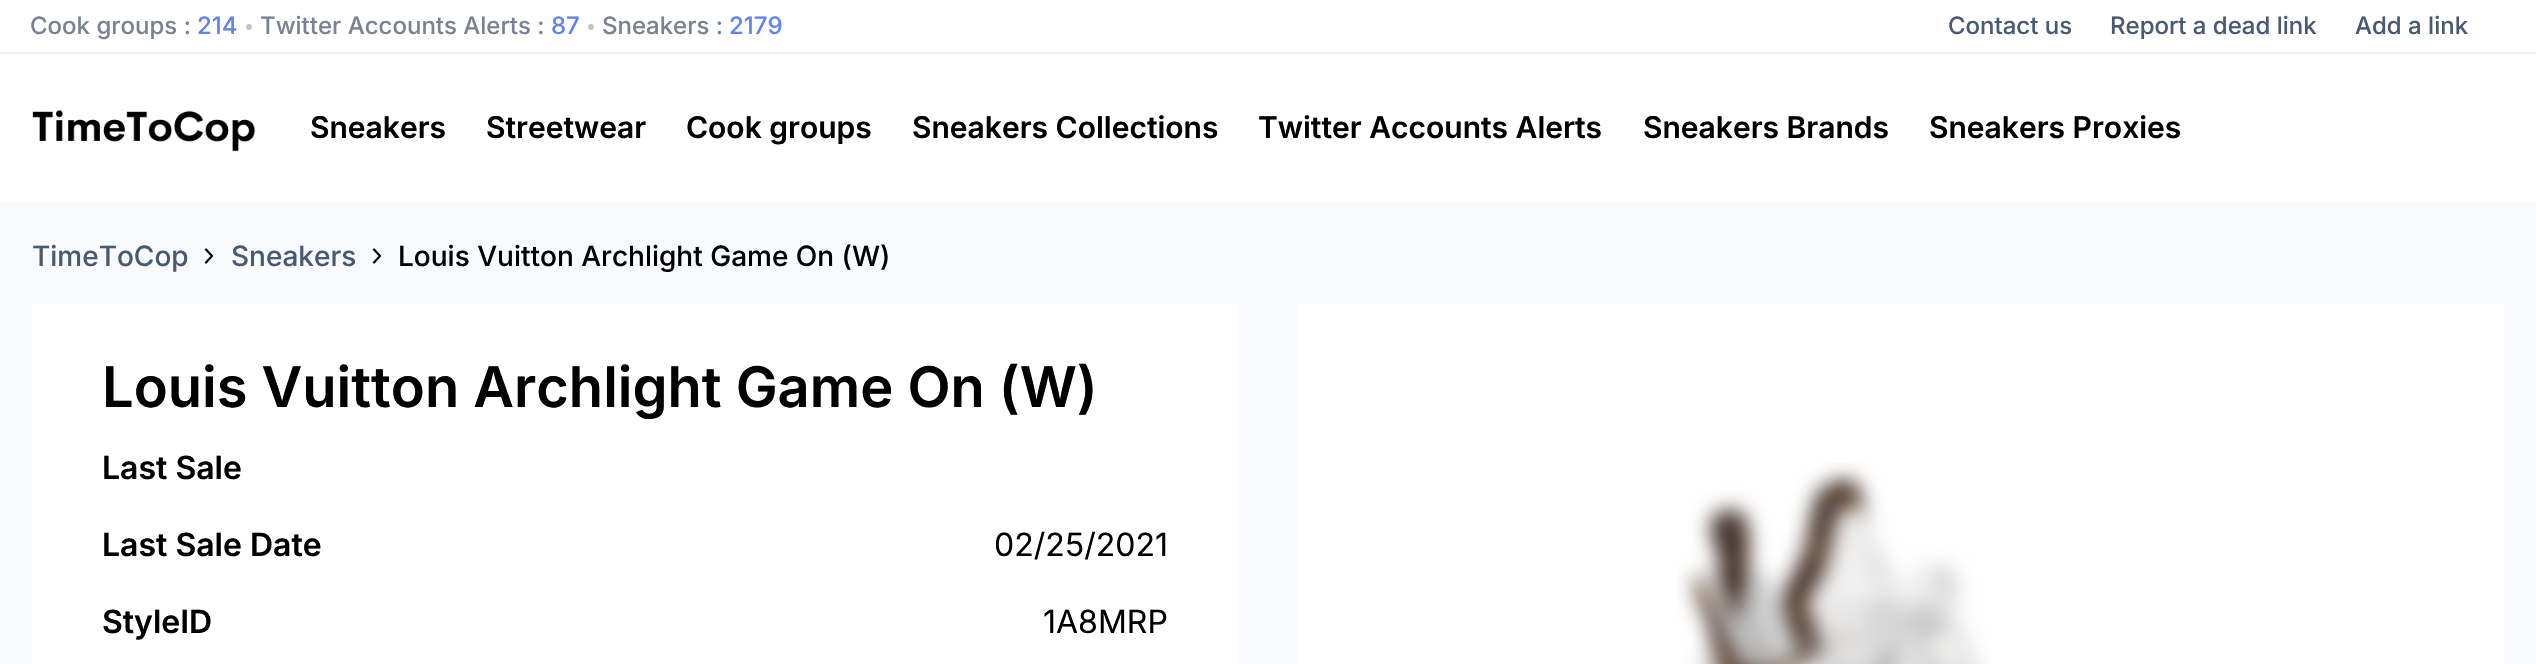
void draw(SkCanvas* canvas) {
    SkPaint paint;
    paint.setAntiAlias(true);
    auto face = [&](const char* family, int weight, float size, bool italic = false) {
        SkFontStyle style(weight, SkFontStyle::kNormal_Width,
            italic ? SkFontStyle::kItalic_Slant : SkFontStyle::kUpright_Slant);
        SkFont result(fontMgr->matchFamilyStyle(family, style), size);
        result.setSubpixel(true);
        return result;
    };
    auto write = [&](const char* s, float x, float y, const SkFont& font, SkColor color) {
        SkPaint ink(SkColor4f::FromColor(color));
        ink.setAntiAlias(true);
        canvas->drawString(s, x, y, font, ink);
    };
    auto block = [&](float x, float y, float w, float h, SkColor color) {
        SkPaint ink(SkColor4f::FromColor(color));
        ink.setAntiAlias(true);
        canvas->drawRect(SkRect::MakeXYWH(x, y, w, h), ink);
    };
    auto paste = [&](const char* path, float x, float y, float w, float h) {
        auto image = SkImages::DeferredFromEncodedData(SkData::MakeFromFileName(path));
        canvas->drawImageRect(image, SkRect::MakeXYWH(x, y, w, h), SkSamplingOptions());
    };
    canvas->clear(SK_ColorWHITE);
    block(0, 52, 2536, 2, SkColorSetRGB(239, 242, 245));
    auto kFont1 = face("Inter", 500, 24);
    write("Cook groups :", 30, 34, kFont1, SkColorSetRGB(121, 130, 148));
    write("214", 197, 34, kFont1, SkColorSetRGB(95, 130, 244));
    paint.setColor(SkColorSetRGB(196, 196, 196));
    canvas->drawCircle(249, 27, 3, paint);
    write("Twitter Accounts Alerts :", 260, 34, kFont1, SkColorSetRGB(121, 130, 148));
    write("87", 551, 34, kFont1, SkColorSetRGB(95, 130, 244));
    canvas->drawCircle(591, 27, 3, paint);
    write("Sneakers :", 602, 34, kFont1, SkColorSetRGB(121, 130, 148));
    write("2179", 729, 34, kFont1, SkColorSetRGB(95, 130, 244));
    write("Contact us", 1948, 34, kFont1, SkColorSetRGB(72, 89, 115));
    write("Report a dead link", 2110, 34, kFont1, SkColorSetRGB(72, 89, 115));
    write("Add a link", 2355, 34, kFont1, SkColorSetRGB(72, 89, 115));
    paste("pic1.png", 32, 110, 224, 42);
    auto kFont2 = face("Inter", 600, 30);
    write("Sneakers", 310, 138, kFont2, SK_ColorBLACK);
    write("Streetwear", 486, 138, kFont2, SK_ColorBLACK);
    write("Cook groups", 686, 138, kFont2, SK_ColorBLACK);
    write("Sneakers Collections", 912, 138, kFont2, SK_ColorBLACK);
    write("Twitter Accounts Alerts", 1258, 138, kFont2, SK_ColorBLACK);
    write("Sneakers Brands", 1643, 138, kFont2, SK_ColorBLACK);
    write("Sneakers Proxies", 1929, 138, kFont2, SK_ColorBLACK);
    block(0, 202, 2536, 462, SkColorSetRGB(249, 250, 253));
    auto kFont3 = face("Inter", 500, 28);
    write("TimeToCop", 32, 266, kFont3, SkColorSetRGB(72, 89, 115));
    write("Sneakers", 231, 266, kFont3, SkColorSetRGB(72, 89, 115));
    paint.setStyle(SkPaint::kStroke_Style);
    paint.setStrokeWidth(2.2f);
    paint.setStrokeCap(SkPaint::kRound_Cap);
    paint.setStrokeJoin(SkPaint::kRound_Join);
    paint.setColor(SK_ColorBLACK);
    canvas->drawPath(SkPathBuilder().moveTo(206, 262.5f).lineTo(212, 256).lineTo(206, 249.5f).detach(), paint);
    write("Louis Vuitton Archlight Game On (W)", 398, 266, kFont3, SK_ColorBLACK);
    canvas->drawPath(SkPathBuilder().moveTo(374, 262.5f).lineTo(380, 256).lineTo(374, 249.5f).detach(), paint);
    block(32, 304, 1206, 360, SK_ColorWHITE);
    auto kFont4 = face("Inter", 600, 56);
    write("Louis Vuitton Archlight Game On (W)", 102, 407, kFont4, SK_ColorBLACK);
    auto kFont5 = face("Inter", 600, 32);
    write("Last Sale", 102, 479, kFont5, SK_ColorBLACK);
    write("Last Sale Date", 102, 556, kFont5, SK_ColorBLACK);
    auto kFont6 = face("Inter", 400, 32);
    write("02/25/2021", 994, 556, kFont6, SK_ColorBLACK);
    write("StyleID", 102, 633, kFont5, SK_ColorBLACK);
    write("1A8MRP", 1043, 633, kFont6, SK_ColorBLACK);
    block(1298, 304, 1206, 360, SK_ColorWHITE);
    paste("pic2.png", 1677, 462, 312, 202);
}
